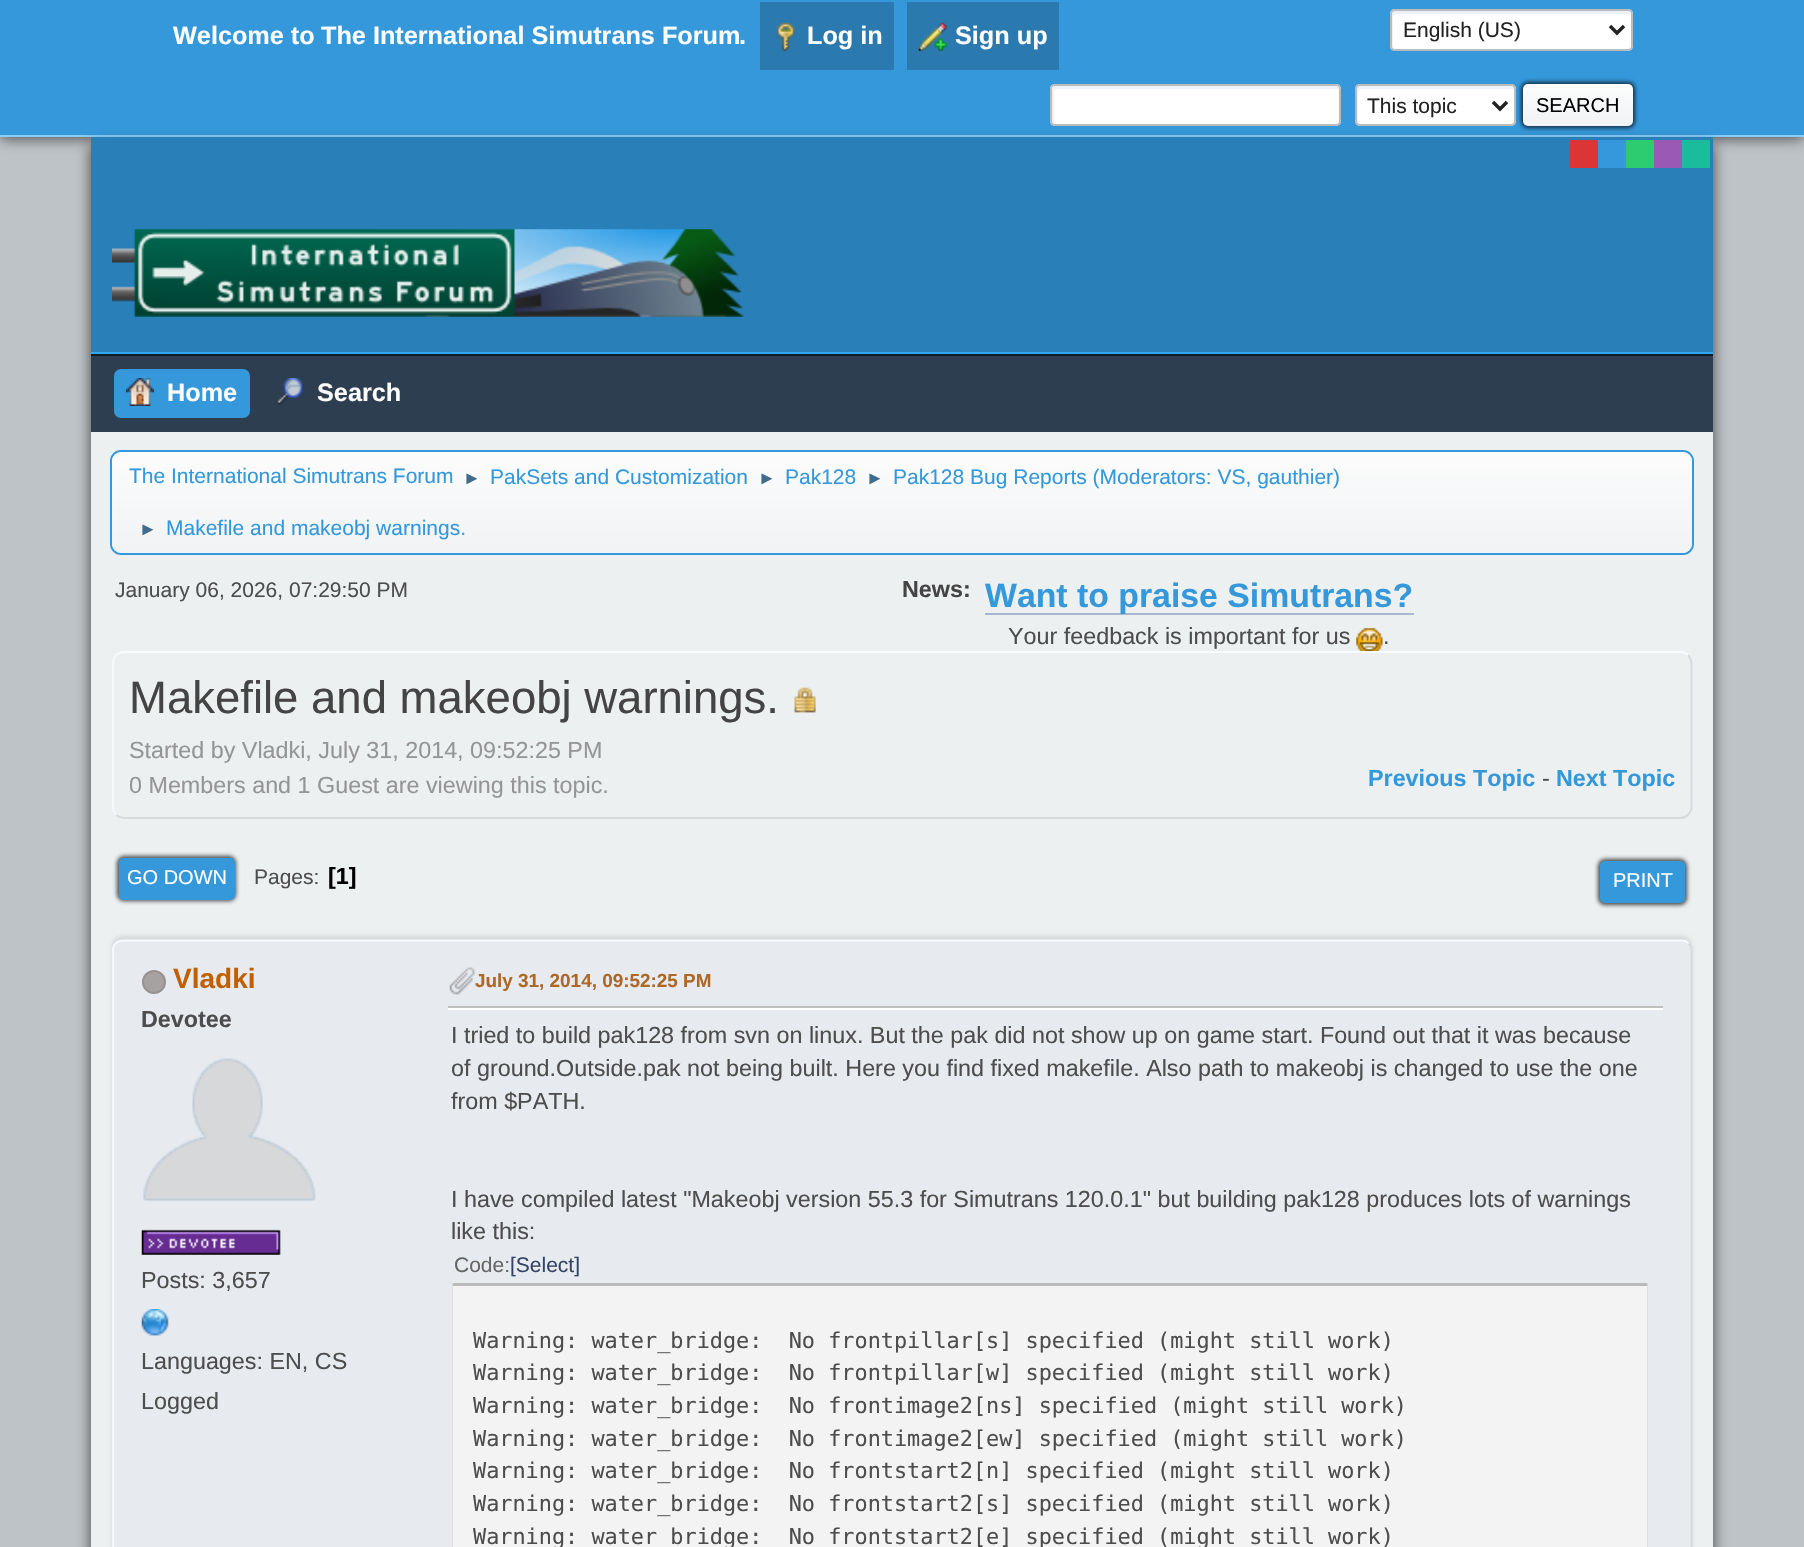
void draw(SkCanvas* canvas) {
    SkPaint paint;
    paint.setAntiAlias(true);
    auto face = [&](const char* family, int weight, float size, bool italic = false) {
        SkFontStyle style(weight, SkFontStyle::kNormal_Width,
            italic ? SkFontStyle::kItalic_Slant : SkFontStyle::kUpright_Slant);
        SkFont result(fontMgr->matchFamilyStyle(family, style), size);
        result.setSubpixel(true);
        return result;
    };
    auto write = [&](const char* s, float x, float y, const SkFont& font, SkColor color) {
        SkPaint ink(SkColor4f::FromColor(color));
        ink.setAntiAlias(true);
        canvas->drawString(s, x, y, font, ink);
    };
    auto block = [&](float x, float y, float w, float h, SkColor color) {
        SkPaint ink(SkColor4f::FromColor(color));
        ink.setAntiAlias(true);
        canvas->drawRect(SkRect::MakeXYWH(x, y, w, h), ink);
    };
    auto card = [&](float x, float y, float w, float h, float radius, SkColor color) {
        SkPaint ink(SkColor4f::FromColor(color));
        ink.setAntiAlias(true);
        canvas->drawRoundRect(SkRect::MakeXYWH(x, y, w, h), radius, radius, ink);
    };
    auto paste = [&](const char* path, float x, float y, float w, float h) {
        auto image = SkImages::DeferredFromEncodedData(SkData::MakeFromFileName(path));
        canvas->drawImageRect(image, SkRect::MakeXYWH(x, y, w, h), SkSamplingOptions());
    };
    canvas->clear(SkColorSetRGB(189, 195, 199));
    paint.setColor(SkColorSetARGB(224, 50, 50, 50));
    paint.setMaskFilter(SkMaskFilter::MakeBlur(kNormal_SkBlurStyle, 7));
    canvas->drawRect(SkRect::MakeXYWH(0, 2, 1804, 136), paint);
    paint.setMaskFilter(nullptr);
    block(0, 0, 1804, 135, SkColorSetRGB(52, 152, 219));
    block(0, 135, 1804, 2, SkColorSetRGB(136, 205, 252));
    auto kFont1 = face("Liberation Sans", 700, 25.25f);
    write("Welcome to", 173, 44, kFont1, SkColorSetRGB(252, 252, 252));
    write("The International Simutrans Forum", 321, 44, kFont1, SkColorSetRGB(252, 252, 252));
    write(".", 739, 44, kFont1, SkColorSetRGB(252, 252, 252));
    block(760, 2, 134, 68, SkColorSetRGB(42, 122, 175));
    paste("pic1.png", 776, 22, 19, 29);
    write("Log in", 807, 44, kFont1, SkColorSetRGB(252, 252, 252));
    block(907, 2, 152, 68, SkColorSetRGB(42, 122, 175));
    paste("pic2.png", 918, 22, 29, 29);
    write("Sign up", 955, 44, kFont1, SkColorSetRGB(252, 252, 252));
    card(1390, 9, 243, 42, 5, SK_ColorWHITE);
    paint.setColor(SkColorSetRGB(236, 241, 248));
    canvas->drawPath(SkPathBuilder().moveTo(1396, 14).lineTo(1629, 14).lineTo(1631, 15).cubicTo(1631, 13, 1629, 11, 1627, 11).lineTo(1395, 11).cubicTo(1393, 11, 1391, 13, 1391, 15).lineTo(1391, 45).cubicTo(1391, 46, 1392, 48, 1393, 48).lineTo(1393, 18).cubicTo(1393, 16, 1395, 14, 1396, 14).close().detach(), paint);
    paint.setStyle(SkPaint::kStroke_Style);
    paint.setStrokeWidth(2);
    paint.setColor(SkColorSetRGB(187, 187, 187));
    canvas->drawRoundRect(SkRect::MakeXYWH(1391, 10, 241, 40), 4, 4, paint);
    paint.setStrokeWidth(3.5f);
    paint.setColor(SkColorSetRGB(34, 34, 34));
    canvas->drawPath(SkPathBuilder().moveTo(1610, 26).lineTo(1617, 33).lineTo(1624, 26).detach(), paint);
    auto kFont2 = face("Liberation Sans", 400, 21);
    write("English (US)", 1403, 37, kFont2, SkColorSetRGB(34, 34, 34));
    paint.setStyle(SkPaint::kFill_Style);
    paint.setColor(SkColorSetARGB(224, 50, 50, 50));
    paint.setMaskFilter(SkMaskFilter::MakeBlur(kNormal_SkBlurStyle, 7));
    canvas->drawRect(SkRect::MakeXYWH(91, 145, 1622, 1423), paint);
    paint.setMaskFilter(nullptr);
    card(1050, 84, 291, 42, 5, SK_ColorWHITE);
    paint.setColor(SkColorSetRGB(236, 241, 248));
    canvas->drawPath(SkPathBuilder().moveTo(1057, 89).lineTo(1337, 89).lineTo(1339, 90).cubicTo(1339, 88, 1337, 86, 1335, 86).lineTo(1056, 86).cubicTo(1054, 86, 1052, 88, 1052, 90).lineTo(1052, 120).cubicTo(1052, 121, 1053, 123, 1054, 123).lineTo(1054, 93).cubicTo(1054, 91, 1055, 89, 1057, 89).close().detach(), paint);
    paint.setStyle(SkPaint::kStroke_Style);
    paint.setStrokeWidth(2);
    paint.setColor(SkColorSetRGB(187, 187, 187));
    canvas->drawRoundRect(SkRect::MakeXYWH(1051, 85, 289, 40), 4, 4, paint);
    card(1355, 84, 161, 42, 5, SK_ColorWHITE);
    paint.setStyle(SkPaint::kFill_Style);
    paint.setColor(SkColorSetRGB(236, 241, 248));
    canvas->drawPath(SkPathBuilder().moveTo(1362, 89).lineTo(1512, 89).lineTo(1514, 90).cubicTo(1514, 88, 1512, 86, 1510, 86).lineTo(1360, 86).cubicTo(1358, 86, 1356, 88, 1356, 90).lineTo(1356, 120).cubicTo(1356, 121, 1357, 123, 1358, 123).lineTo(1358, 93).cubicTo(1358, 91, 1360, 89, 1362, 89).close().detach(), paint);
    paint.setStyle(SkPaint::kStroke_Style);
    paint.setColor(SkColorSetRGB(187, 187, 187));
    canvas->drawRoundRect(SkRect::MakeXYWH(1356, 85, 159, 40), 4, 4, paint);
    paint.setStrokeWidth(3.5f);
    paint.setColor(SkColorSetRGB(34, 34, 34));
    canvas->drawPath(SkPathBuilder().moveTo(1493, 102).lineTo(1500, 109).lineTo(1507, 102).detach(), paint);
    write("This topic", 1367, 113, kFont2, SkColorSetRGB(34, 34, 34));
    paint.setStyle(SkPaint::kFill_Style);
    paint.setColor(SkColorSetARGB(179, 0, 0, 0));
    paint.setMaskFilter(SkMaskFilter::MakeBlur(kNormal_SkBlurStyle, 2));
    canvas->drawRoundRect(SkRect::MakeXYWH(1521, 82, 114, 46), 7, 7, paint);
    paint.setMaskFilter(nullptr);
    {
        const SkColor colors[] = {SkColorSetRGB(252, 252, 252), SkColorSetRGB(241, 243, 245)};
        const float stops[] = {0, 0.95f};
        const SkPoint ends[] = {{1578, 84}, {1578, 126}};
        paint.setShader(SkGradientShader::MakeLinear(ends, colors, stops, 2, SkTileMode::kClamp));
        paint.setAlpha(255);
    }
    canvas->drawRoundRect(SkRect::MakeXYWH(1523, 84, 110, 42), 5, 5, paint);
    auto kFont3 = face("Liberation Sans", 400, 20);
    write("SEARCH", 1536, 112, kFont3, SK_ColorBLACK);
    block(91, 432, 1622, 1115, SkColorSetRGB(236, 240, 241));
    block(91, 137, 1622, 215, SkColorSetRGB(41, 128, 185));
    block(91, 352, 1622, 2, SkColorSetRGB(48, 166, 244));
    block(1570, 140, 28, 28, SkColorSetRGB(219, 53, 53));
    block(1598, 140, 28, 28, SkColorSetRGB(53, 152, 220));
    block(1626, 140, 28, 28, SkColorSetRGB(46, 204, 113));
    block(1654, 140, 28, 28, SkColorSetRGB(155, 89, 182));
    block(1682, 140, 28, 28, SkColorSetRGB(26, 188, 156));
    paste("pic3.png", 112, 229, 632, 88);
    block(91, 356, 1622, 76, SkColorSetRGB(44, 62, 80));
    block(91, 354, 1622, 2, SkColorSetRGB(19, 29, 38));
    card(114, 369, 136, 49, 7, SkColorSetRGB(52, 152, 219));
    paste("pic4.png", 126, 378, 28, 28);
    write("Home", 167, 401, kFont1, SkColorSetRGB(252, 252, 252));
    paste("pic5.png", 276, 378, 27, 27);
    write("Search", 317, 401, kFont1, SkColorSetRGB(252, 252, 252));
    paint.setStyle(SkPaint::kStroke_Style);
    paint.setStrokeWidth(2);
    paint.setShader(nullptr);
    paint.setColor(SkColorSetRGB(52, 152, 219));
    canvas->drawRoundRect(SkRect::MakeXYWH(111, 451, 1582, 103), 10, 10, paint);
    paint.setStyle(SkPaint::kFill_Style);
    {
        const SkColor colors[] = {SkColorSetRGB(252, 252, 252), SkColorSetRGB(241, 243, 245)};
        const float stops[] = {0, 0.95f};
        const SkPoint ends[] = {{902, 451}, {902, 553}};
        paint.setShader(SkGradientShader::MakeLinear(ends, colors, stops, 2, SkTileMode::kClamp));
        paint.setAlpha(255);
    }
    canvas->drawRoundRect(SkRect::MakeXYWH(112, 452, 1580, 101), 9, 9, paint);
    write("The International Simutrans Forum", 129, 483, kFont2, SkColorSetRGB(52, 152, 219));
    auto kFont4 = face("Liberation Sans", 400, 18);
    write("►", 463, 484, kFont4, SkColorSetRGB(63, 107, 140));
    write("PakSets and Customization", 490, 484, kFont2, SkColorSetRGB(52, 152, 219));
    write("►", 758, 484, kFont4, SkColorSetRGB(63, 107, 140));
    write("Pak128", 785, 484, kFont2, SkColorSetRGB(52, 152, 219));
    write("►", 866, 484, kFont4, SkColorSetRGB(63, 107, 140));
    write("Pak128 Bug Reports (Moderators: VS, gauthier)", 893, 484, kFont2, SkColorSetRGB(52, 152, 219));
    write("►", 139, 535, kFont4, SkColorSetRGB(63, 107, 140));
    write("Makefile and makeobj warnings.", 166, 535, kFont2, SkColorSetRGB(52, 152, 219));
    write("January 06, 2026, 07:29:50 PM", 115, 597, kFont2, SkColorSetRGB(77, 77, 77));
    auto kFont5 = face("Liberation Sans", 700, 23.33f);
    write("News:", 902, 597, kFont5, SkColorSetRGB(68, 68, 68));
    block(985, 613, 429, 2, SkColorSetRGB(168, 182, 207));
    auto kFont6 = face("Liberation Sans", 700, 33.8f);
    write("Want to praise Simutrans?", 985, 607, kFont6, SkColorSetRGB(52, 152, 219));
    auto kFont7 = face("Liberation Sans", 400, 23.33f);
    write("Your feedback is important for us", 1008, 644, kFont7, SkColorSetRGB(77, 77, 77));
    paste("pic6.png", 1356, 628, 27, 23);
    write(".", 1383, 644, kFont7, SkColorSetRGB(77, 77, 77));
    paint.setStyle(SkPaint::kStroke_Style);
    paint.setStrokeWidth(1.8f);
    paint.setShader(nullptr);
    paint.setColor(SkColorSetRGB(215, 217, 221));
    canvas->drawPath(SkPathBuilder().moveTo(1688, 655).cubicTo(1690, 657.5f, 1691.5f, 660, 1691.5f, 663).lineTo(1691.5f, 807).cubicTo(1691.5f, 810, 1690, 812.5f, 1688, 815).cubicTo(1686, 817, 1683, 818, 1680, 818).lineTo(124, 818).cubicTo(121, 818, 118.5f, 817, 116, 815).detach(), paint);
    paint.setColor(SkColorSetRGB(248, 250, 253));
    canvas->drawPath(SkPathBuilder().moveTo(116, 815).cubicTo(114, 812.5f, 113, 810, 113, 807).lineTo(113, 663).cubicTo(113, 660, 114, 657.5f, 116, 655).cubicTo(118.5f, 653, 121, 652, 124, 652).lineTo(1680, 652).cubicTo(1683, 652, 1686, 653, 1688, 655).detach(), paint);
    auto kFont8 = face("Liberation Sans", 400, 45.5f);
    write("Makefile and makeobj warnings.", 129, 713, kFont8, SkColorSetRGB(68, 68, 68));
    paste("pic7.png", 794, 687, 22, 26);
    write("Started by Vladki, July 31, 2014, 09:52:25 PM", 129, 758, kFont7, SkColorSetRGB(149, 149, 149));
    write("0 Members and 1 Guest are viewing this topic.", 129, 793, kFont7, SkColorSetRGB(149, 149, 149));
    write("Previous Topic", 1368, 786, kFont5, SkColorSetRGB(52, 152, 219));
    write("-", 1542, 786, kFont7, SkColorSetRGB(77, 77, 77));
    write("Next Topic", 1556, 786, kFont5, SkColorSetRGB(52, 152, 219));
    paint.setStyle(SkPaint::kFill_Style);
    paint.setColor(SkColorSetARGB(179, 0, 0, 0));
    paint.setMaskFilter(SkMaskFilter::MakeBlur(kNormal_SkBlurStyle, 2));
    canvas->drawRoundRect(SkRect::MakeXYWH(117, 856, 119, 45), 7, 7, paint);
    paint.setMaskFilter(nullptr);
    card(119, 858, 116, 42, 5, SkColorSetRGB(52, 152, 219));
    write("GO DOWN", 127, 884, kFont3, SkColorSetRGB(252, 252, 252));
    write("Pages:", 254, 884, kFont2, SkColorSetRGB(77, 77, 77));
    write("[1]", 328, 884, kFont5, SK_ColorBLACK);
    paint.setMaskFilter(SkMaskFilter::MakeBlur(kNormal_SkBlurStyle, 2));
    canvas->drawRoundRect(SkRect::MakeXYWH(1598, 859, 89, 46), 7, 7, paint);
    paint.setMaskFilter(nullptr);
    card(1600, 861, 85, 42, 5, SkColorSetRGB(52, 152, 219));
    write("PRINT", 1613, 887, kFont3, SkColorSetRGB(252, 252, 252));
    paint.setColor(SkColorSetARGB(26, 0, 0, 0));
    paint.setMaskFilter(SkMaskFilter::MakeBlur(kNormal_SkBlurStyle, 2));
    canvas->drawRoundRect(SkRect::MakeXYWH(112, 936, 1580, 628), 11, 11, paint);
    paint.setMaskFilter(nullptr);
    card(112, 940, 1580, 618, 11, SkColorSetRGB(231, 234, 239));
    paint.setStyle(SkPaint::kStroke_Style);
    paint.setColor(SkColorSetRGB(215, 217, 221));
    canvas->drawPath(SkPathBuilder().moveTo(1688.5f, 943.5f).cubicTo(1690.5f, 945, 1691.5f, 947.5f, 1691.5f, 950).lineTo(1691.5f, 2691.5f).cubicTo(1691.5f, 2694, 1690.5f, 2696.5f, 1688.5f, 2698.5f).cubicTo(1687, 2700, 1684.5f, 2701, 1682, 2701).lineTo(122.5f, 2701).cubicTo(120, 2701, 117.5f, 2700, 115.5f, 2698.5f).detach(), paint);
    paint.setColor(SkColorSetRGB(248, 250, 253));
    canvas->drawPath(SkPathBuilder().moveTo(115.5f, 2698.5f).cubicTo(114, 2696.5f, 113, 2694, 113, 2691.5f).lineTo(113, 950).cubicTo(113, 947.5f, 114, 945, 115.5f, 943.5f).cubicTo(117.5f, 941.5f, 120, 940.5f, 122.5f, 940.5f).lineTo(1682, 940.5f).cubicTo(1684.5f, 940.5f, 1687, 941.5f, 1688.5f, 943.5f).detach(), paint);
    paint.setStyle(SkPaint::kFill_Style);
    paint.setColor(SkColorSetRGB(167, 162, 162));
    canvas->drawCircle(154, 982, 11, paint);
    paint.setStyle(SkPaint::kStroke_Style);
    paint.setStrokeWidth(2);
    paint.setColor(SkColorSetRGB(150, 146, 146));
    canvas->drawCircle(154, 982, 11, paint);
    auto kFont9 = face("Liberation Sans", 700, 28);
    write("Vladki", 173, 988, kFont9, SkColorSetRGB(192, 96, 2));
    write("Devotee", 141, 1027, kFont5, SkColorSetRGB(77, 77, 77));
    paste("pic8.png", 143, 1058, 173, 143);
    paste("pic9.png", 141, 1229, 140, 26);
    write("Posts: 3,657", 141, 1288, kFont7, SkColorSetRGB(77, 77, 77));
    paste("pic10.png", 141, 1309, 28, 27);
    write("Languages: EN, CS", 141, 1369, kFont7, SkColorSetRGB(77, 77, 77));
    write("Logged", 141, 1409, kFont7, SkColorSetRGB(77, 77, 77));
    paste("pic11.png", 448, 967, 27, 28);
    auto kFont10 = face("Liberation Sans", 700, 18.9f);
    write("July 31, 2014, 09:52:25 PM", 475, 987, kFont10, SkColorSetRGB(173, 104, 37));
    block(448, 1008, 1215, 2, SK_ColorWHITE);
    block(448, 1006, 1215, 2, SkColorSetRGB(191, 191, 191));
    write("I tried to build pak128 from svn on linux. But the pak did not show up on game start. Found out that it was because", 451, 1043, kFont7, SkColorSetRGB(77, 77, 77));
    write("of ground.Outside.pak not being built. Here you find fixed makefile. Also path to makeobj is changed to use the one", 451, 1076, kFont7, SkColorSetRGB(77, 77, 77));
    write("from $PATH.", 451, 1109, kFont7, SkColorSetRGB(77, 77, 77));
    write("I have compiled latest \"Makeobj version 55.3 for Simutrans 120.0.1\" but building pak128 produces lots of warnings", 451, 1207, kFont7, SkColorSetRGB(77, 77, 77));
    write("like this:", 451, 1239, kFont7, SkColorSetRGB(77, 77, 77));
    write("Code:", 454, 1272, kFont2, SkColorSetRGB(102, 102, 102));
    write("[Select]", 510, 1272, kFont2, SkColorSetRGB(51, 68, 102));
    paint.setStyle(SkPaint::kFill_Style);
    paint.setColor(SkColorSetRGB(243, 243, 243));
    canvas->drawPath(SkPathBuilder().moveTo(455, 1286).lineTo(1647, 1286).lineTo(1647, 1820).lineTo(453, 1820).lineTo(453, 1286).close().detach(), paint);
    paint.setColor(SkColorSetRGB(187, 187, 187));
    canvas->drawPath(SkPathBuilder().moveTo(455, 1283).cubicTo(454, 1283, 453, 1283, 452, 1284).lineTo(453, 1286).lineTo(1647, 1286).lineTo(1648, 1284).cubicTo(1647, 1283, 1646, 1283, 1645, 1283).close().detach(), paint);
    paint.setColor(SkColorSetRGB(223, 223, 223));
    canvas->drawPath(SkPathBuilder().moveTo(1648, 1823).lineTo(1648, 1284).lineTo(1647, 1286).lineTo(1647, 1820).close().detach(), paint);
    canvas->drawPath(SkPathBuilder().moveTo(452, 1284).lineTo(452, 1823).lineTo(453, 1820).lineTo(453, 1286).close().detach(), paint);
    auto kFont11 = face("DejaVu Sans Mono", 400, 21.85f);
    write("Warning: water_bridge:  No frontpillar[s] specified (might still work)", 473, 1348, kFont11, SkColorSetRGB(77, 77, 77));
    write("Warning: water_bridge:  No frontpillar[w] specified (might still work)", 473, 1380, kFont11, SkColorSetRGB(77, 77, 77));
    write("Warning: water_bridge:  No frontimage2[ns] specified (might still work)", 473, 1413, kFont11, SkColorSetRGB(77, 77, 77));
    write("Warning: water_bridge:  No frontimage2[ew] specified (might still work)", 473, 1446, kFont11, SkColorSetRGB(77, 77, 77));
    write("Warning: water_bridge:  No frontstart2[n] specified (might still work)", 473, 1478, kFont11, SkColorSetRGB(77, 77, 77));
    write("Warning: water_bridge:  No frontstart2[s] specified (might still work)", 473, 1511, kFont11, SkColorSetRGB(77, 77, 77));
    write("Warning: water_bridge:  No frontstart2[e] specified (might still work)", 473, 1544, kFont11, SkColorSetRGB(77, 77, 77));
}
